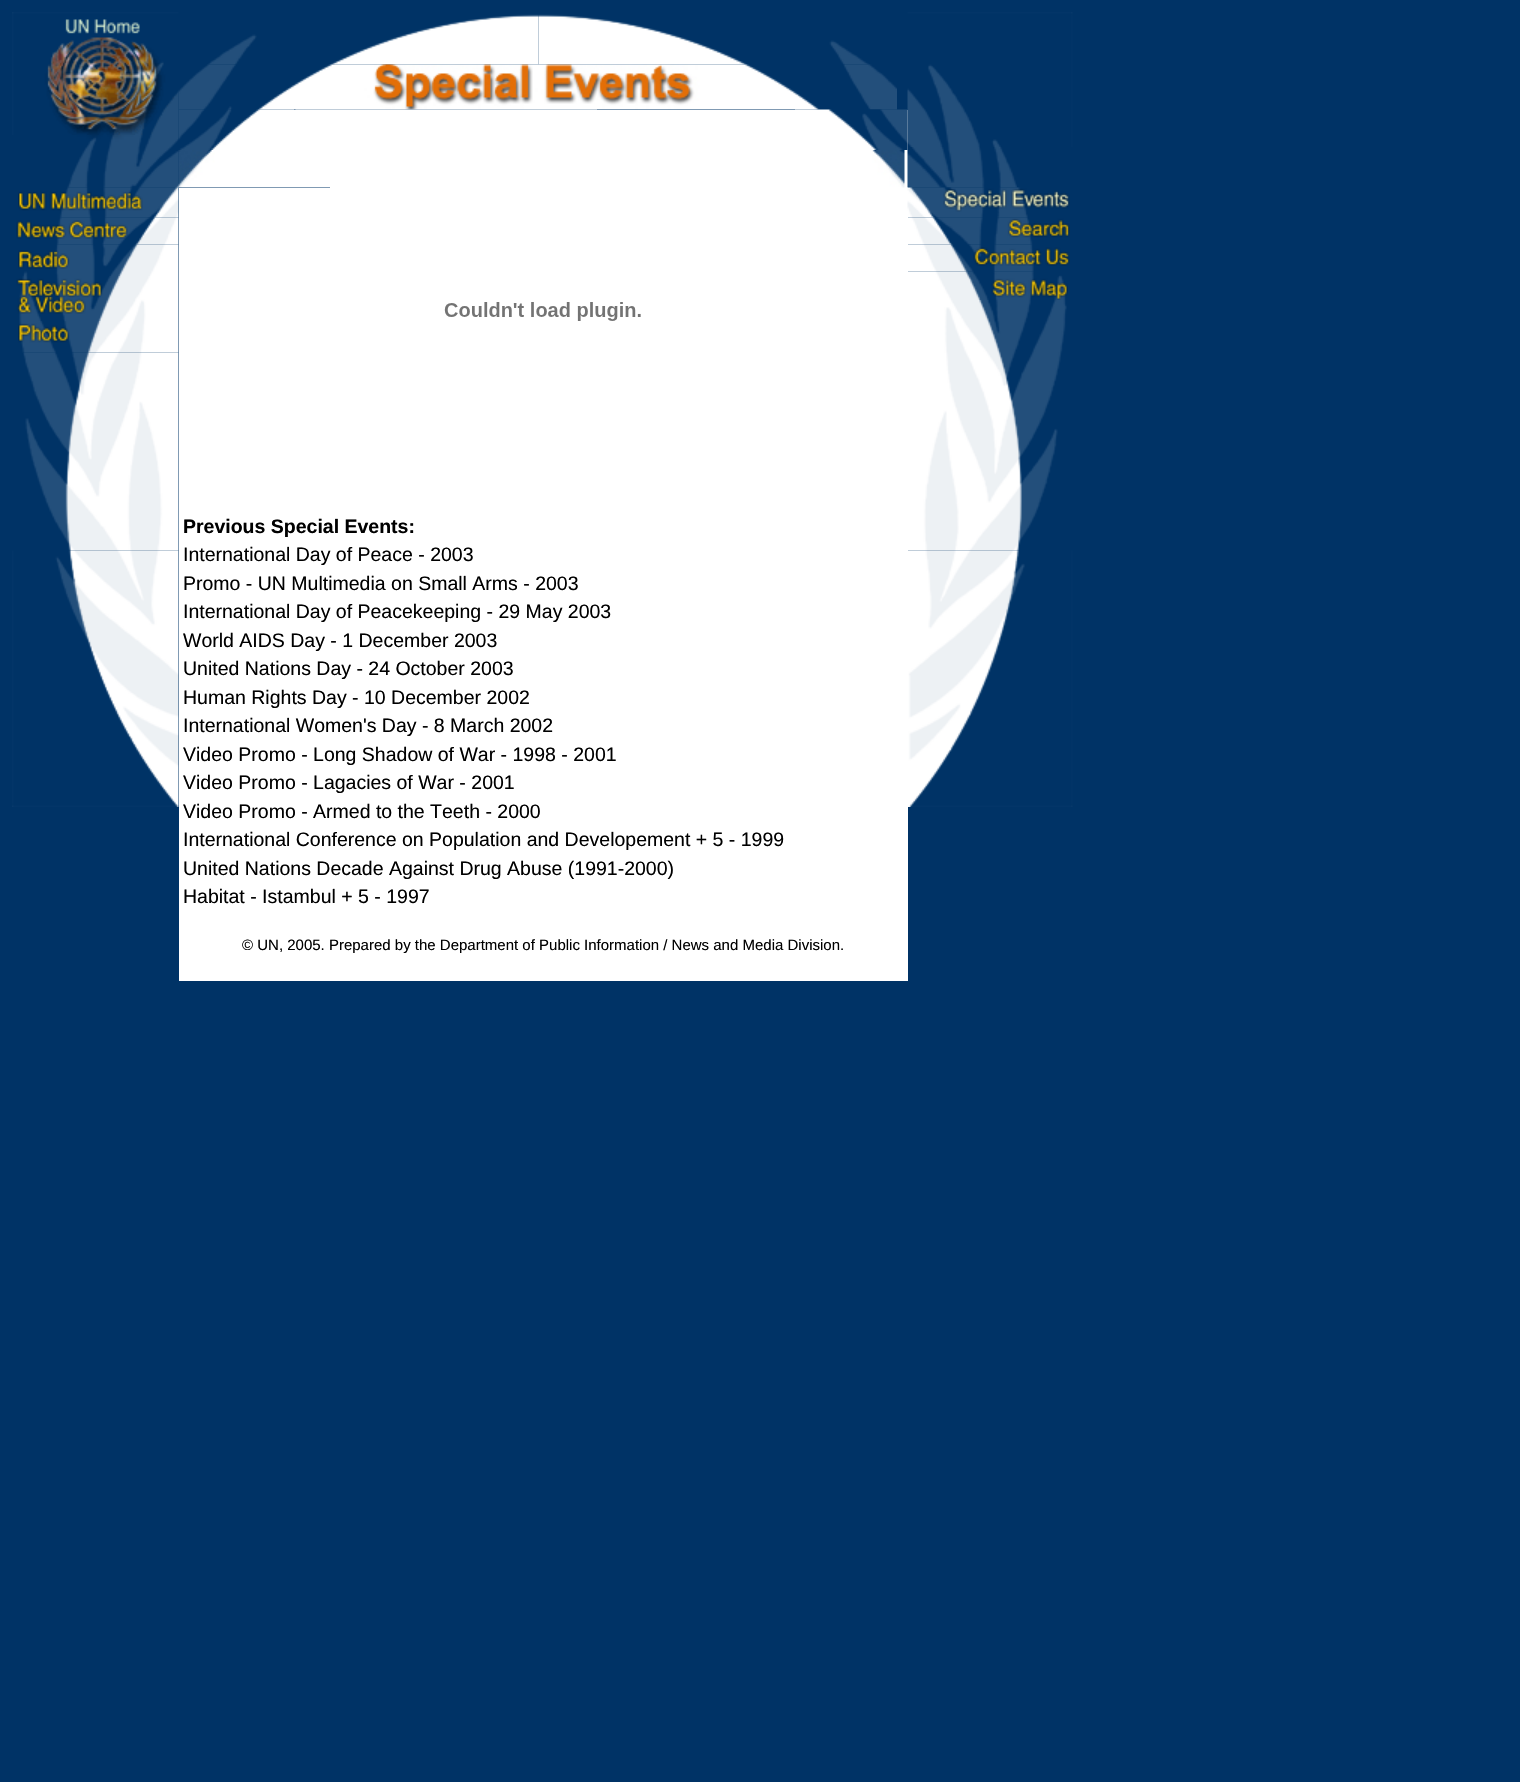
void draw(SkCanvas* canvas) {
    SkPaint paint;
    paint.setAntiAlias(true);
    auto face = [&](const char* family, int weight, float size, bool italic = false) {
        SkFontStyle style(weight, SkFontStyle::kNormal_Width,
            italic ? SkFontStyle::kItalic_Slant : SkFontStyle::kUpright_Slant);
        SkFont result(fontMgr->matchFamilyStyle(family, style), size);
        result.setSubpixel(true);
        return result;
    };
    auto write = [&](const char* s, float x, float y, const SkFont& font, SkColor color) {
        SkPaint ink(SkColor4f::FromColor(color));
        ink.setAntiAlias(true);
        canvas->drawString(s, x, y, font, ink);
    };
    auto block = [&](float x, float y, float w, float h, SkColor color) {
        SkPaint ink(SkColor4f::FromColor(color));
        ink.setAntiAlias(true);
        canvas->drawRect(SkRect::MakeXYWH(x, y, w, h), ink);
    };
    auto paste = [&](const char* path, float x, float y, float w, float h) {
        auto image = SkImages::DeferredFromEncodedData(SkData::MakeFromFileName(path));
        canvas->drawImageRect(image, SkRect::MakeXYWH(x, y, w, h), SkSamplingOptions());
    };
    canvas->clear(SkColorSetRGB(0, 51, 102));
    paste("pic1.png", 12, 12, 167, 123);
    paste("pic2.png", 67, 135, 112, 53);
    paste("pic3.png", 208, 14, 331, 51);
    paste("pic4.png", 538, 14, 331, 51);
    paste("pic5.png", 178, 64, 161, 46);
    paste("pic6.png", 339, 64, 387, 46);
    paste("pic7.png", 726, 64, 171, 46);
    block(294, 110, 614, 40, SK_ColorWHITE);
    paste("pic8.png", 178, 109, 116, 41);
    paste("pic9.png", 295, 109, 302, 1);
    paste("pic10.png", 795, 109, 113, 41);
    paste("pic11.png", 178, 150, 152, 38);
    block(330, 150, 578, 38, SK_ColorWHITE);
    paste("pic12.png", 872, 150, 33, 38);
    paste("pic13.png", 907, 12, 166, 135);
    paste("pic14.png", 907, 147, 110, 41);
    paste("pic15.png", 18, 187, 161, 31);
    paste("pic16.png", 16, 217, 163, 28);
    paste("pic17.png", 18, 244, 161, 32);
    paste("pic18.png", 16, 276, 163, 45);
    paste("pic19.png", 18, 321, 161, 32);
    paste("pic20.png", 23, 352, 156, 199);
    paste("pic21.png", 12, 550, 167, 257);
    block(179, 188, 729, 793, SK_ColorWHITE);
    paste("pic22.png", 444, 302, 197, 19);
    auto kFont1 = face("Liberation Sans", 700, 19.5f);
    write("Previous Special Events:", 183, 533, kFont1, SK_ColorBLACK);
    auto kFont2 = face("Liberation Sans", 400, 19.5f);
    write("International Day of Peace - 2003", 183, 561, kFont2, SK_ColorBLACK);
    write("Promo - UN Multimedia on Small Arms - 2003", 183, 590, kFont2, SK_ColorBLACK);
    write("International Day of Peacekeeping - 29 May 2003", 183, 618, kFont2, SK_ColorBLACK);
    write("World AIDS Day - 1 December 2003", 183, 647, kFont2, SK_ColorBLACK);
    write("United Nations Day - 24 October 2003", 183, 675, kFont2, SK_ColorBLACK);
    write("Human Rights Day - 10 December 2002", 183, 704, kFont2, SK_ColorBLACK);
    write("International Women's Day - 8 March 2002", 183, 732, kFont2, SK_ColorBLACK);
    write("Video Promo - Long Shadow of War - 1998 - 2001", 183, 761, kFont2, SK_ColorBLACK);
    write("Video Promo - Lagacies of War - 2001", 183, 789, kFont2, SK_ColorBLACK);
    write("Video Promo - Armed to the Teeth - 2000", 183, 818, kFont2, SK_ColorBLACK);
    write("International Conference on Population and Developement + 5 - 1999", 183, 846, kFont2, SK_ColorBLACK);
    write("United Nations Decade Against Drug Abuse (1991-2000)", 183, 875, kFont2, SK_ColorBLACK);
    write("Habitat - Istambul + 5 - 1997", 183, 903, kFont2, SK_ColorBLACK);
    auto kFont3 = face("Liberation Sans", 400, 15);
    write("© UN, 2005. Prepared by the Department of Public Information / News and Media Division.", 242, 950, kFont3, SK_ColorBLACK);
    paste("pic23.png", 907, 187, 163, 31);
    paste("pic24.png", 908, 217, 162, 28);
    paste("pic25.png", 908, 244, 162, 28);
    paste("pic26.png", 908, 271, 160, 29);
    paste("pic27.png", 908, 300, 159, 251);
    paste("pic28.png", 908, 550, 165, 257);
}
